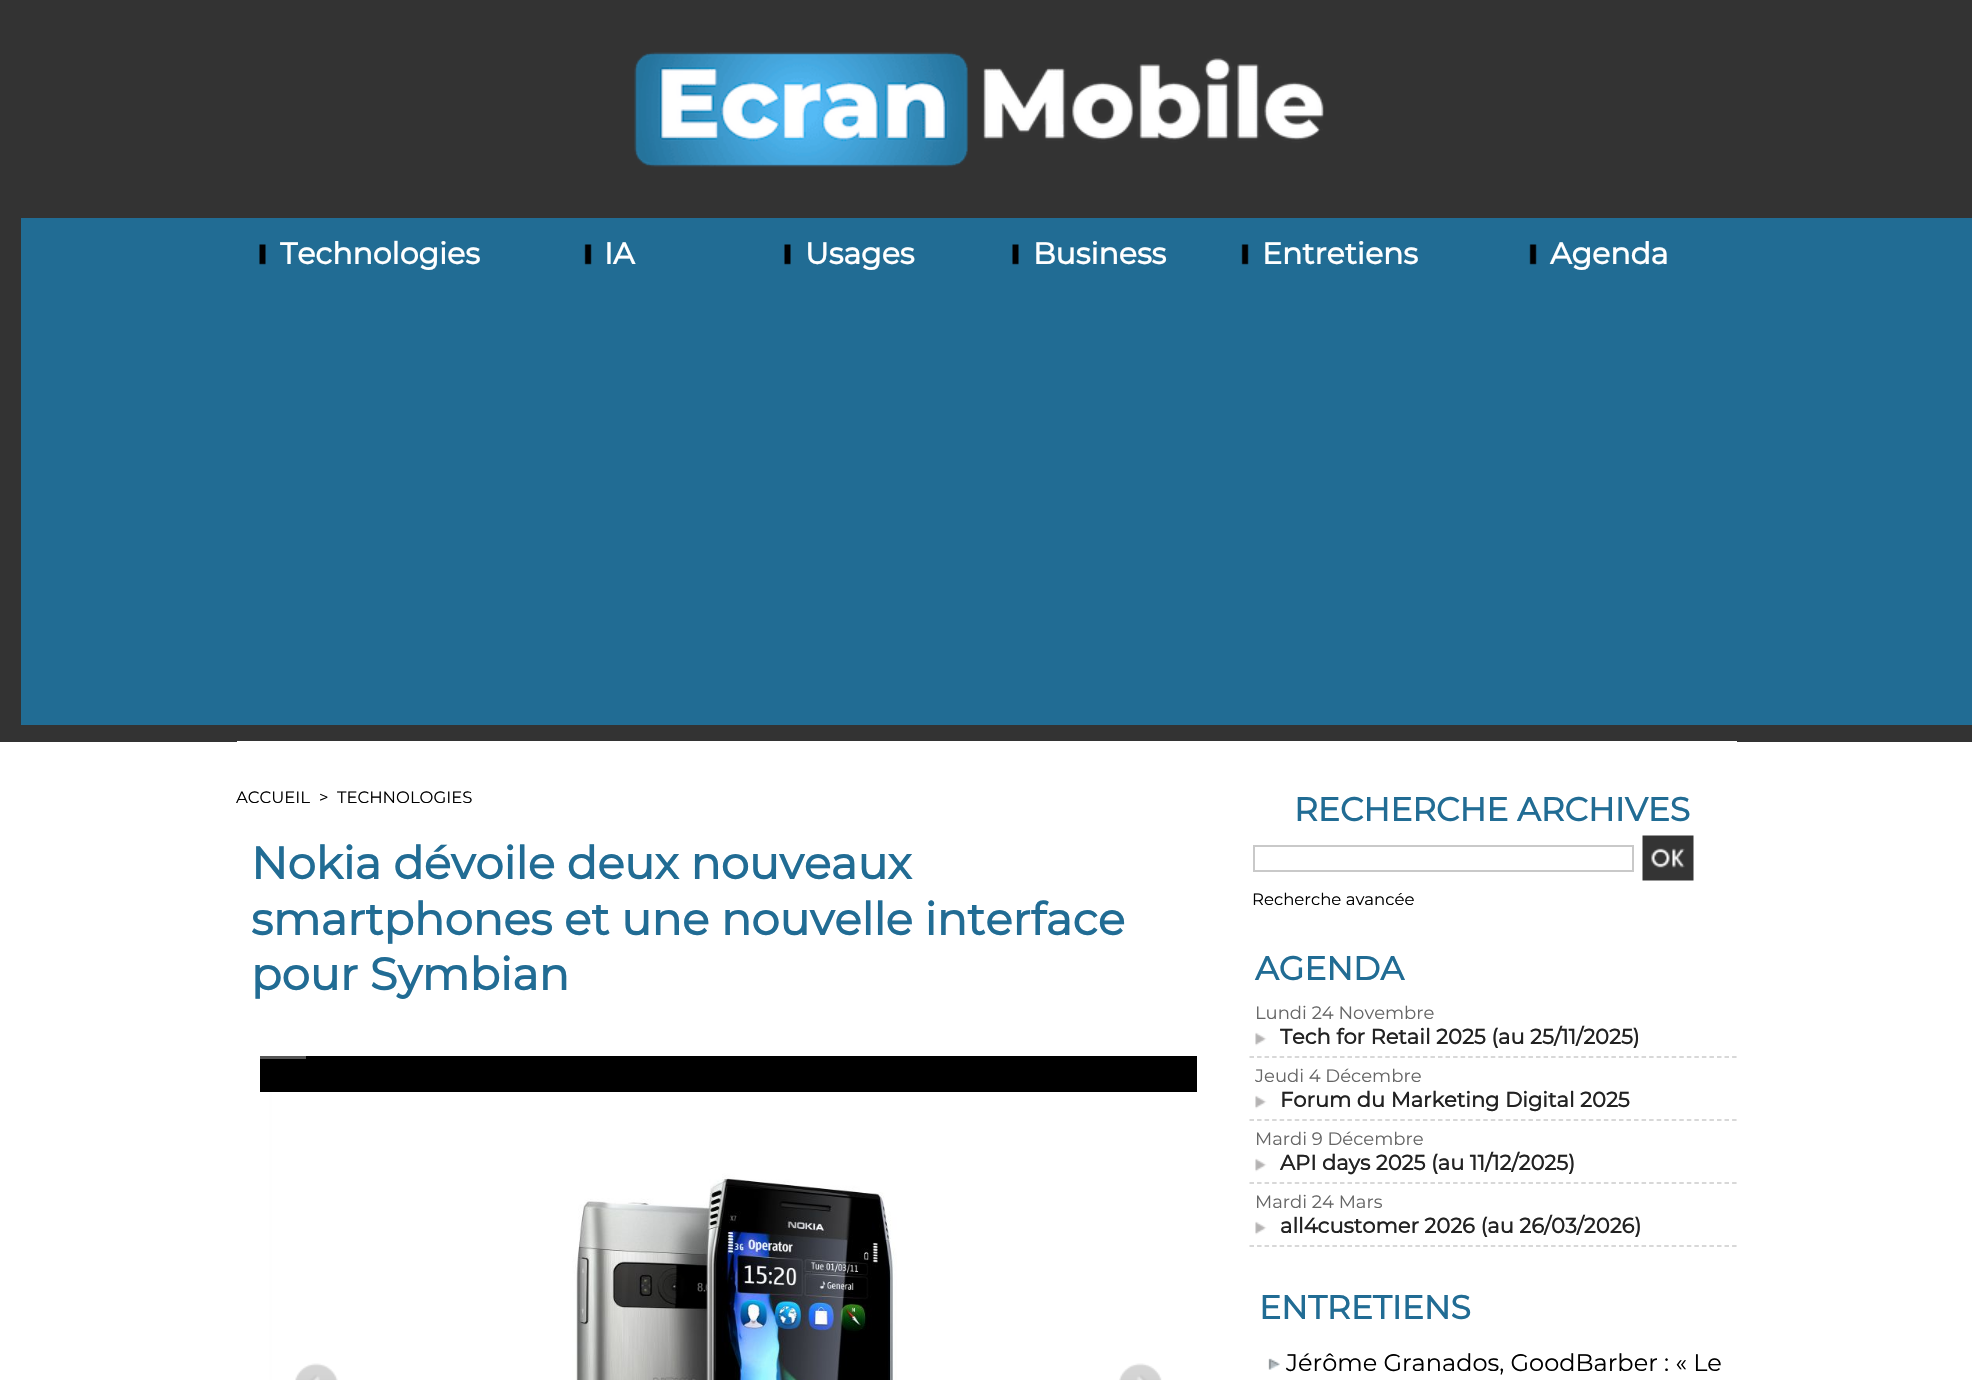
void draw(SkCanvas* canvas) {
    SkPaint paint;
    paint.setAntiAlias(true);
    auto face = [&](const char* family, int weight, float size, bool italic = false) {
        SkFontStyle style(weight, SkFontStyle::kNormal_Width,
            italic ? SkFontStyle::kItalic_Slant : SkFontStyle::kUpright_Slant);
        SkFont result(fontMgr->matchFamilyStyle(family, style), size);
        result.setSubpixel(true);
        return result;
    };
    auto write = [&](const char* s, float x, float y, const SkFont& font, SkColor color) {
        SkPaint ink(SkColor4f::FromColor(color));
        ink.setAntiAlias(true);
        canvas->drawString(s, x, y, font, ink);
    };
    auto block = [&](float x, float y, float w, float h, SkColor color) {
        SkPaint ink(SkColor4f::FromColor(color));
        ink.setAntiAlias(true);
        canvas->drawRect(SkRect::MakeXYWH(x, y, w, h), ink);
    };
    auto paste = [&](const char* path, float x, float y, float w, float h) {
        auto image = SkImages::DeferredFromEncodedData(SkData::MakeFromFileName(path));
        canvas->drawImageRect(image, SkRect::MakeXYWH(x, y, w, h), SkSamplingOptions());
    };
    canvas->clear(SK_ColorWHITE);
    block(0, 0, 1972, 742, SkColorSetRGB(51, 51, 51));
    paste("pic1.png", 634, 52, 690, 115);
    block(21, 218, 1951, 507, SkColorSetRGB(33, 108, 148));
    paste("pic2.png", 259, 244, 7, 21);
    auto kFont1 = face("Montserrat", 700, 30);
    write("Technologies", 280, 264, kFont1, SK_ColorWHITE);
    paste("pic3.png", 584, 244, 8, 21);
    write("IA", 604, 264, kFont1, SK_ColorWHITE);
    paste("pic2.png", 784, 244, 7, 21);
    write("Usages", 805, 264, kFont1, SK_ColorWHITE);
    paste("pic2.png", 1012, 244, 7, 21);
    write("Business", 1033, 264, kFont1, SK_ColorWHITE);
    paste("pic3.png", 1241, 244, 8, 21);
    write("Entretiens", 1262, 264, kFont1, SK_ColorWHITE);
    paste("pic3.png", 1529, 244, 8, 21);
    write("Agenda", 1550, 264, kFont1, SK_ColorWHITE);
    block(237, 741, 1500, 1, SK_ColorWHITE);
    auto kFont2 = face("Montserrat", 100, 16.5f);
    write("ACCUEIL", 236, 803, kFont2, SK_ColorBLACK);
    write(">", 319, 803, kFont2, SK_ColorBLACK);
    write("TECHNOLOGIES", 337, 803, kFont2, SK_ColorBLACK);
    auto kFont3 = face("Montserrat", 700, 45);
    write("Nokia dévoile deux nouveaux", 251, 879, kFont3, SkColorSetRGB(33, 108, 148));
    write("smartphones et une nouvelle interface", 251, 935, kFont3, SkColorSetRGB(33, 108, 148));
    write("pour Symbian", 251, 990, kFont3, SkColorSetRGB(33, 108, 148));
    block(260, 1056, 937, 36, SK_ColorBLACK);
    block(260, 1056, 46, 3, SkColorSetRGB(85, 85, 85));
    paste("pic4.png", 260, 1092, 937, 288);
    paste("pic5.png", 295, 1363, 43, 17);
    paste("pic6.png", 1119, 1363, 43, 17);
    auto kFont4 = face("Montserrat", 700, 33);
    write("RECHERCHE ARCHIVES", 1294, 821, kFont4, SkColorSetRGB(33, 108, 148));
    paint.setStyle(SkPaint::kStroke_Style);
    paint.setStrokeWidth(2);
    paint.setColor(SkColorSetRGB(201, 201, 201));
    canvas->drawRect(SkRect::MakeXYWH(1254, 846, 379, 25), paint);
    paste("pic7.png", 1642, 835, 52, 46);
    write("Recherche avancée", 1252, 905, kFont2, SK_ColorBLACK);
    write("AGENDA", 1255, 980, kFont4, SkColorSetRGB(33, 108, 148));
    paint.setStrokeWidth(1.5f);
    paint.setColor(SkColorSetRGB(204, 204, 204));
    paint.setPathEffect(SkDashPathEffect::Make({{4.5f, 3.04f}}, 0));
    canvas->drawPath(SkPathBuilder().moveTo(1249.5f, 1057).lineTo(1737, 1057).detach(), paint);
    paint.setPathEffect(nullptr);
    auto kFont5 = face("Montserrat", 100, 18);
    write("Lundi 24 Novembre", 1255, 1019, kFont5, SkColorSetRGB(102, 102, 102));
    paste("pic8.png", 1255, 1032, 12, 14);
    auto kFont6 = face("Montserrat", 700, 21);
    write("Tech for Retail 2025 (au 25/11/2025)", 1280, 1044, kFont6, SkColorSetRGB(34, 34, 34));
    paint.setPathEffect(SkDashPathEffect::Make({{4.5f, 3.04f}}, 0));
    canvas->drawPath(SkPathBuilder().moveTo(1249.5f, 1120).lineTo(1737, 1120).detach(), paint);
    paint.setPathEffect(nullptr);
    write("Jeudi 4 Décembre", 1255, 1082, kFont5, SkColorSetRGB(102, 102, 102));
    paste("pic8.png", 1255, 1095, 12, 14);
    write("Forum du Marketing Digital 2025", 1280, 1107, kFont6, SkColorSetRGB(34, 34, 34));
    paint.setPathEffect(SkDashPathEffect::Make({{4.5f, 3.04f}}, 0));
    canvas->drawPath(SkPathBuilder().moveTo(1249.5f, 1183).lineTo(1737, 1183).detach(), paint);
    paint.setPathEffect(nullptr);
    write("Mardi 9 Décembre", 1255, 1145, kFont5, SkColorSetRGB(102, 102, 102));
    paste("pic8.png", 1255, 1158, 12, 14);
    write("API days 2025 (au 11/12/2025)", 1280, 1170, kFont6, SkColorSetRGB(34, 34, 34));
    paint.setPathEffect(SkDashPathEffect::Make({{4.5f, 3.04f}}, 0));
    canvas->drawPath(SkPathBuilder().moveTo(1249.5f, 1246).lineTo(1737, 1246).detach(), paint);
    paint.setPathEffect(nullptr);
    write("Mardi 24 Mars", 1255, 1208, kFont5, SkColorSetRGB(102, 102, 102));
    paste("pic8.png", 1255, 1221, 12, 14);
    write("all4customer 2026 (au 26/03/2026)", 1280, 1233, kFont6, SkColorSetRGB(34, 34, 34));
    write("ENTRETIENS", 1259, 1319, kFont4, SkColorSetRGB(33, 108, 148));
    paste("pic9.png", 1268, 1358, 12, 12);
    auto kFont7 = face("Montserrat", 100, 24);
    write("Jérôme Granados, GoodBarber : « Le", 1286, 1371, kFont7, SK_ColorBLACK);
}
